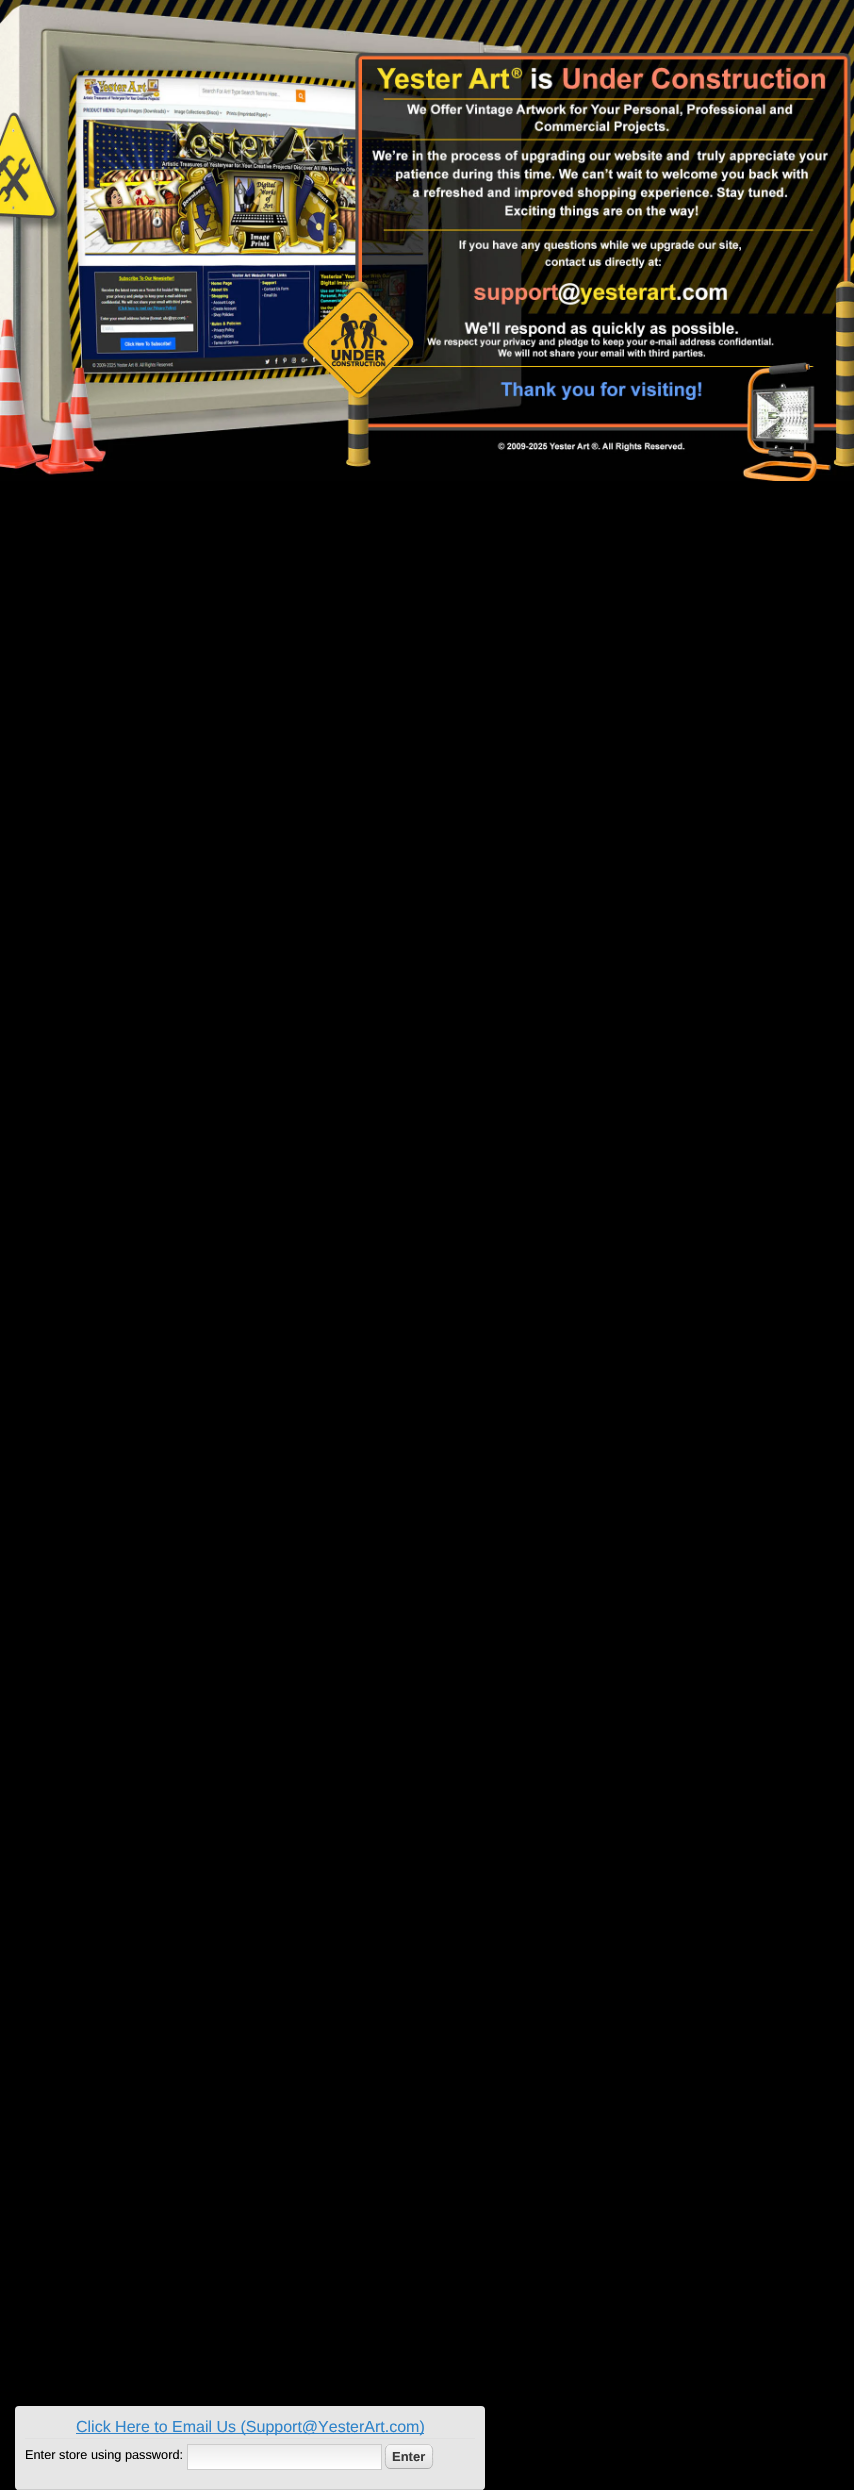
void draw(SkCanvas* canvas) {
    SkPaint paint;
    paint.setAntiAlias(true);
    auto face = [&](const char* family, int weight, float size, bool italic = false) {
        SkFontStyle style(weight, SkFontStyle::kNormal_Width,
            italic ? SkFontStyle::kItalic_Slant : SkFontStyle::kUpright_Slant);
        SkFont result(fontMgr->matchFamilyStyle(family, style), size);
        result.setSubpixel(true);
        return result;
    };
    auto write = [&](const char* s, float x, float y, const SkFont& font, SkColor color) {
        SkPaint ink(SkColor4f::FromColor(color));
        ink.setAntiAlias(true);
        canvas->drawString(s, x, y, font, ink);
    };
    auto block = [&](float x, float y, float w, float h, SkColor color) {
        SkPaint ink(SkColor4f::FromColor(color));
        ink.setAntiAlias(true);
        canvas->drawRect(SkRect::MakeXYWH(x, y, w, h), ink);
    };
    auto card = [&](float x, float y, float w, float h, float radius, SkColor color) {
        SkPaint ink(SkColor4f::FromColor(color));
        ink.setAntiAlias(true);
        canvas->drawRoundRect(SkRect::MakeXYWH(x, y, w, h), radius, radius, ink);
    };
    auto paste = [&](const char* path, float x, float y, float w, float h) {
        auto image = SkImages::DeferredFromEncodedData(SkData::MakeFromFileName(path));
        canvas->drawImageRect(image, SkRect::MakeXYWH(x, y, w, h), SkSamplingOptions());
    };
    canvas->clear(SK_ColorBLACK);
    paste("pic1.png", 0, 0, 854, 481);
    card(15, 2406, 470, 84, 4, SkColorSetRGB(230, 230, 230));
    block(17, 2489, 466, 1, SkColorSetRGB(204, 204, 204));
    block(76, 2433, 348, 1, SkColorSetRGB(48, 132, 202));
    auto kFont1 = face("Liberation Sans", 400, 16);
    write("Click Here to Email Us (Support@YesterArt.com)", 76, 2432, kFont1, SkColorSetRGB(48, 132, 202));
    block(25, 2438, 450, 1, SkColorSetRGB(224, 224, 224));
    auto kFont2 = face("Liberation Sans", 400, 12.75f);
    write("Enter store using password:", 25, 2459, kFont2, SK_ColorBLACK);
    {
        const SkColor colors[] = {SkColorSetRGB(236, 236, 236), SK_ColorWHITE};
        const float stops[] = {0, 1};
        const SkPoint ends[] = {{188, 2445}, {188, 2469}};
        paint.setShader(SkGradientShader::MakeLinear(ends, colors, stops, 2, SkTileMode::kClamp));
        paint.setAlpha(255);
    }
    canvas->drawRect(SkRect::MakeXYWH(188, 2445, 193, 24), paint);
    paint.setStyle(SkPaint::kStroke_Style);
    paint.setStrokeWidth(1);
    paint.setShader(nullptr);
    paint.setColor(SkColorSetRGB(204, 204, 204));
    canvas->drawRect(SkRect::MakeXYWH(187.5f, 2444.5f, 194, 25), paint);
    paste("pic2.png", 385, 2445, 48, 24);
    canvas->drawPath(SkPathBuilder().moveTo(387, 2446).cubicTo(387.5f, 2445, 389, 2444.5f, 390, 2444.5f).lineTo(428, 2444.5f).cubicTo(429, 2444.5f, 430.5f, 2445, 431, 2446).detach(), paint);
    paint.setColor(SkColorSetRGB(187, 187, 187));
    canvas->drawPath(SkPathBuilder().moveTo(431, 2446).cubicTo(433.5f, 2448, 432.5f, 2453.5f, 432.5f, 2456.5f).cubicTo(432.5f, 2459.5f, 433.5f, 2465, 431, 2467).detach(), paint);
    paint.setColor(SkColorSetRGB(170, 170, 170));
    canvas->drawPath(SkPathBuilder().moveTo(431, 2467).cubicTo(430.5f, 2468, 429, 2468.5f, 428, 2468.5f).lineTo(390, 2468.5f).cubicTo(389, 2468.5f, 387.5f, 2468, 387, 2467).detach(), paint);
    paint.setColor(SkColorSetRGB(187, 187, 187));
    canvas->drawPath(SkPathBuilder().moveTo(387, 2467).cubicTo(384.5f, 2465, 385.5f, 2459.5f, 385.5f, 2456.5f).cubicTo(385.5f, 2453.5f, 384.5f, 2448, 387, 2446).detach(), paint);
    auto kFont3 = face("Liberation Sans", 700, 13);
    write("Enter", 392, 2461, kFont3, SkColorSetRGB(58, 58, 58));
}
